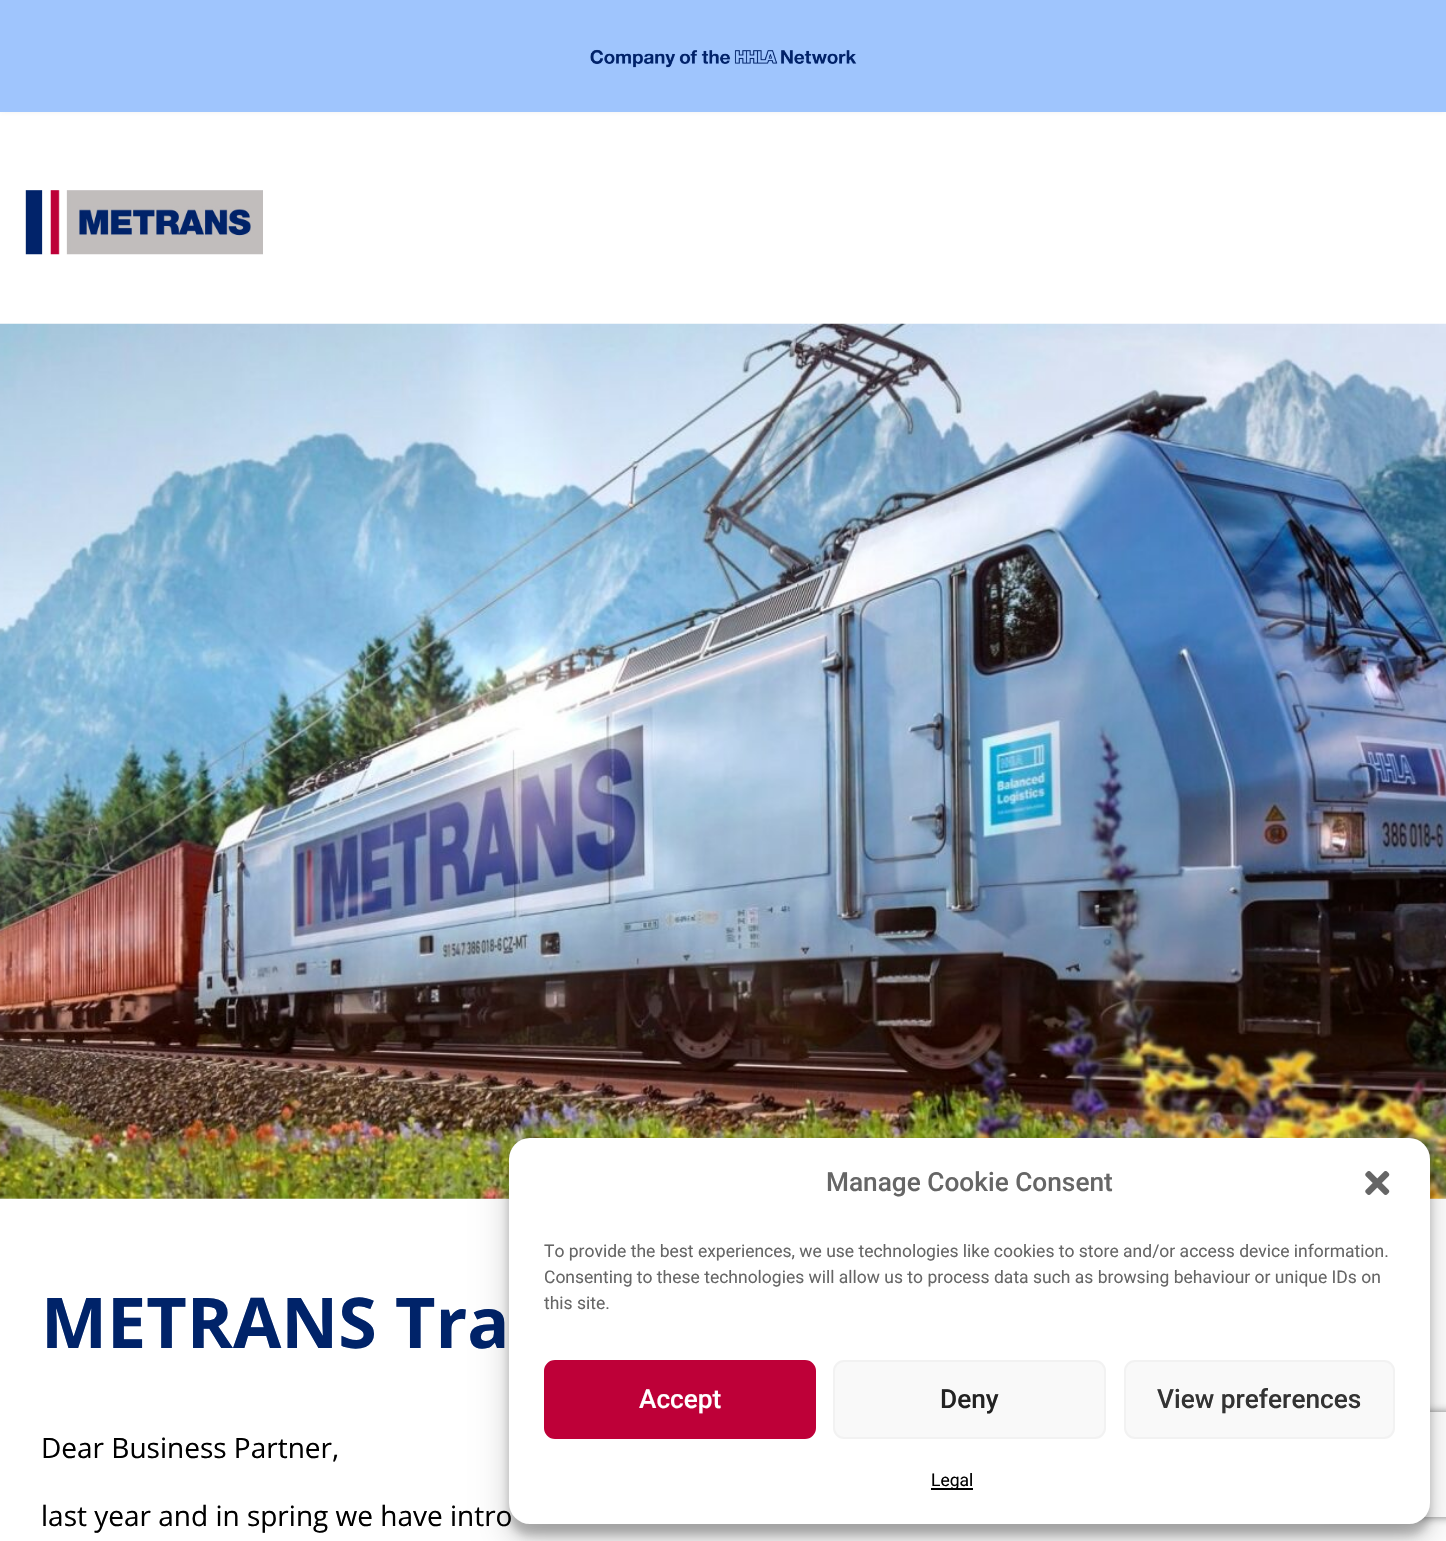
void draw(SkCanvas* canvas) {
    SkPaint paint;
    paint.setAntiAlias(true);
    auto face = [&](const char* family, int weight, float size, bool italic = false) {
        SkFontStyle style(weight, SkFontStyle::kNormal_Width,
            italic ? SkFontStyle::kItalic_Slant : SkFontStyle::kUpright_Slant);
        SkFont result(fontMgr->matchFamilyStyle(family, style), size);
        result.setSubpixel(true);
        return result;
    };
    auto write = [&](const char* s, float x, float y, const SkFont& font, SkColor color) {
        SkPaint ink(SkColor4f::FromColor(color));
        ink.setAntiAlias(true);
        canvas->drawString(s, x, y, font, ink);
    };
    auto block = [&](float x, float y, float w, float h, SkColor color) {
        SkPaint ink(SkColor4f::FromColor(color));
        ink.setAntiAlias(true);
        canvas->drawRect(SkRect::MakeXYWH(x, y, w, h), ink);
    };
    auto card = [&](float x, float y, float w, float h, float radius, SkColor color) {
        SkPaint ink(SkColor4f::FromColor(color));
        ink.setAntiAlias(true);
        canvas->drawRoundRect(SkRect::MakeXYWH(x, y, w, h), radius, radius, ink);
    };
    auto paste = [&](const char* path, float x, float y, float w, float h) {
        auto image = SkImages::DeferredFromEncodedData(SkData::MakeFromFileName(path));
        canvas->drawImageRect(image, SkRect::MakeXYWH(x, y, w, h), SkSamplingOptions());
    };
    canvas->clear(SK_ColorWHITE);
    paint.setColor(SkColorSetARGB(26, 0, 0, 0));
    paint.setMaskFilter(SkMaskFilter::MakeBlur(kNormal_SkBlurStyle, 3.5f));
    canvas->drawRect(SkRect::MakeXYWH(0, -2, 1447, 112), paint);
    paint.setMaskFilter(nullptr);
    block(0, 0, 1446, 112, SkColorSetRGB(159, 197, 253));
    paste("pic1.png", 590, 49, 267, 19);
    paste("pic2.png", 25, 190, 238, 65);
    paste("pic3.png", 0, 323, 1446, 876);
    auto kFont1 = face("Open Sans", 700, 70);
    write("METRANS Tra", 41, 1348, kFont1, SkColorSetRGB(0, 35, 105));
    auto kFont2 = face("Open Sans", 400, 28);
    write("Dear Business Partner,", 41, 1458, kFont2, SK_ColorBLACK);
    write("last year and in spring we have intro", 41, 1526, kFont2, SK_ColorBLACK);
    canvas->save();
    canvas->clipPath(SkPathBuilder(SkPathFillType::kEvenOdd).moveTo(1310, 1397).lineTo(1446, 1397).lineTo(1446, 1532).lineTo(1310, 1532).close().moveTo(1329, 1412).lineTo(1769, 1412).cubicTo(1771, 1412, 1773, 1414, 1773, 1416).lineTo(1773, 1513).cubicTo(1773, 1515, 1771, 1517, 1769, 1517).lineTo(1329, 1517).cubicTo(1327, 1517, 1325, 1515, 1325, 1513).lineTo(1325, 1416).cubicTo(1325, 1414, 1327, 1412, 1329, 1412).close().detach(), true);
    paint.setColor(SkColorSetRGB(128, 128, 128));
    paint.setMaskFilter(SkMaskFilter::MakeBlur(kNormal_SkBlurStyle, 4.5f));
    canvas->drawRoundRect(SkRect::MakeXYWH(1325, 1412, 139, 105), 4, 4, paint);
    paint.setMaskFilter(nullptr);
    canvas->restore();
    paint.setColor(SkColorSetARGB(59, 0, 0, 0));
    paint.setMaskFilter(SkMaskFilter::MakeBlur(kNormal_SkBlurStyle, 5));
    canvas->drawRoundRect(SkRect::MakeXYWH(509, 1148, 921, 387), 21, 21, paint);
    paint.setMaskFilter(nullptr);
    paint.setColor(SkColorSetARGB(48, 0, 0, 0));
    paint.setMaskFilter(SkMaskFilter::MakeBlur(kNormal_SkBlurStyle, 17.5f));
    canvas->drawRoundRect(SkRect::MakeXYWH(509, 1155, 921, 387), 21, 21, paint);
    paint.setMaskFilter(nullptr);
    card(509, 1138, 921, 386, 21, SK_ColorWHITE);
    auto kFont3 = face("Roboto", 500, 26.25f);
    write("Manage Cookie Consent", 826, 1191, kFont3, SkColorSetRGB(102, 102, 102));
    paste("pic4.png", 1365, 1171, 25, 24);
    auto kFont4 = face("Roboto", 400, 17.5f);
    write("To provide the best experiences, we use technologies like cookies to store and/or access device information.", 544, 1257, kFont4, SkColorSetRGB(102, 102, 102));
    write("Consenting to these technologies will allow us to process data such as browsing behaviour or unique IDs on", 544, 1283, kFont4, SkColorSetRGB(102, 102, 102));
    write("this site.", 544, 1309, kFont4, SkColorSetRGB(102, 102, 102));
    paint.setColor(SkColorSetRGB(190, 0, 56));
    canvas->drawRoundRect(SkRect::MakeXYWH(545, 1361, 270, 77), 10, 10, paint);
    paint.setStyle(SkPaint::kStroke_Style);
    paint.setStrokeWidth(2);
    canvas->drawRoundRect(SkRect::MakeXYWH(545, 1361, 270, 77), 10, 10, paint);
    write("Accept", 639, 1408, kFont3, SK_ColorWHITE);
    paint.setStyle(SkPaint::kFill_Style);
    paint.setColor(SkColorSetRGB(249, 249, 249));
    canvas->drawRoundRect(SkRect::MakeXYWH(834, 1361, 271, 77), 10, 10, paint);
    paint.setStyle(SkPaint::kStroke_Style);
    paint.setColor(SkColorSetRGB(242, 242, 242));
    canvas->drawRoundRect(SkRect::MakeXYWH(834, 1361, 271, 77), 10, 10, paint);
    write("Deny", 940, 1408, kFont3, SkColorSetRGB(34, 34, 34));
    paint.setStyle(SkPaint::kFill_Style);
    paint.setColor(SkColorSetRGB(249, 249, 249));
    canvas->drawRoundRect(SkRect::MakeXYWH(1125, 1361, 269, 77), 10, 10, paint);
    paint.setStyle(SkPaint::kStroke_Style);
    paint.setColor(SkColorSetRGB(242, 242, 242));
    canvas->drawRoundRect(SkRect::MakeXYWH(1125, 1361, 269, 77), 10, 10, paint);
    write("View preferences", 1157, 1408, kFont3, SkColorSetRGB(51, 51, 51));
    block(931, 1488, 42, 2, SK_ColorBLACK);
    write("Legal", 931, 1486, kFont4, SK_ColorBLACK);
}
